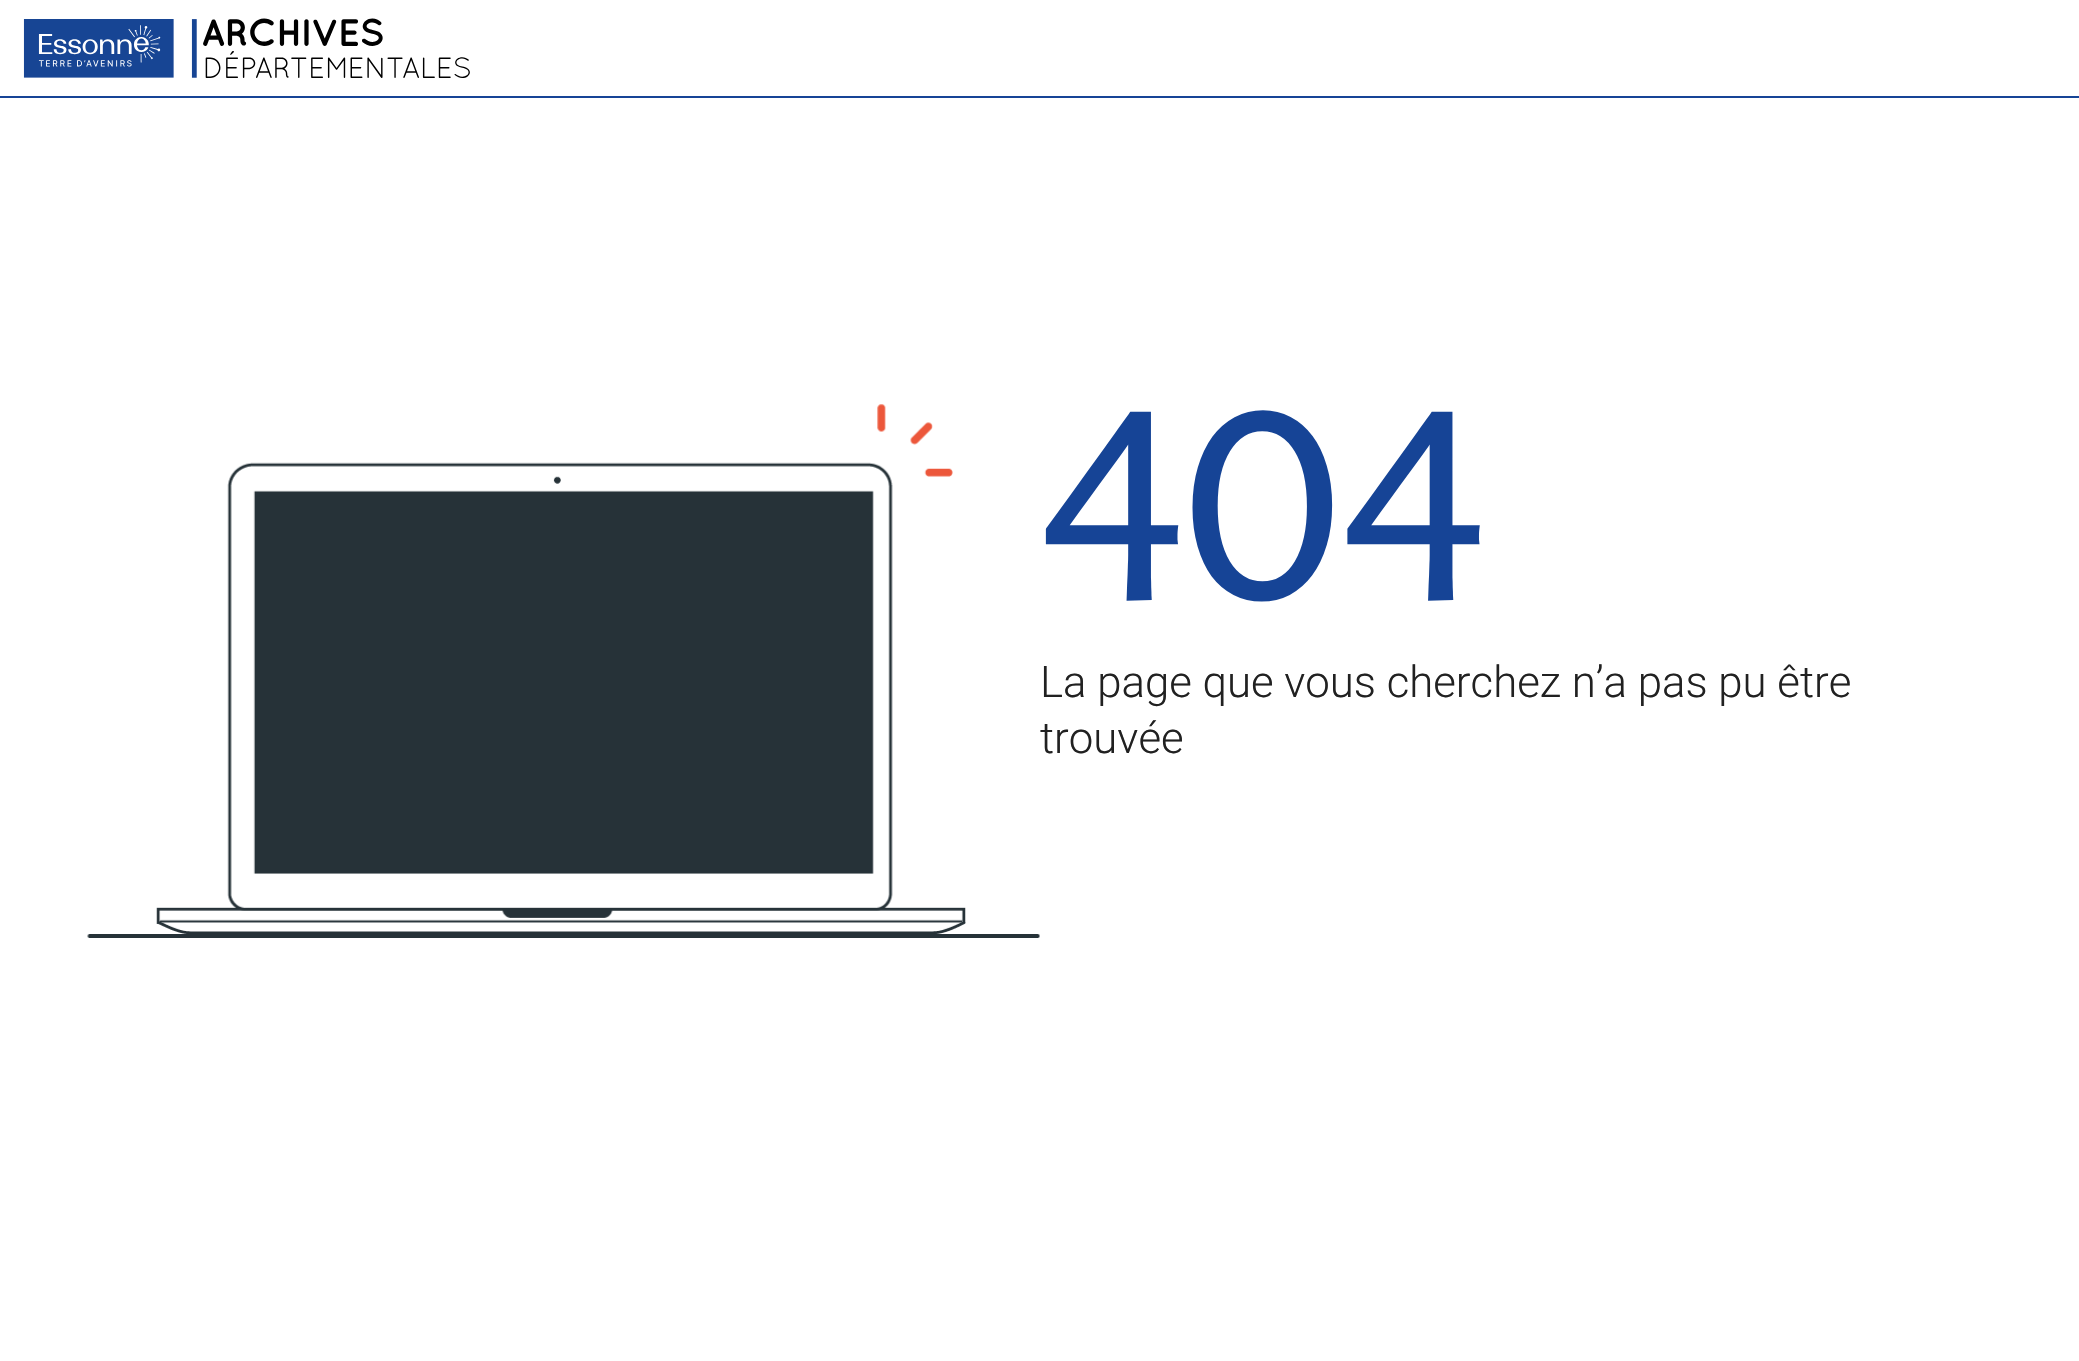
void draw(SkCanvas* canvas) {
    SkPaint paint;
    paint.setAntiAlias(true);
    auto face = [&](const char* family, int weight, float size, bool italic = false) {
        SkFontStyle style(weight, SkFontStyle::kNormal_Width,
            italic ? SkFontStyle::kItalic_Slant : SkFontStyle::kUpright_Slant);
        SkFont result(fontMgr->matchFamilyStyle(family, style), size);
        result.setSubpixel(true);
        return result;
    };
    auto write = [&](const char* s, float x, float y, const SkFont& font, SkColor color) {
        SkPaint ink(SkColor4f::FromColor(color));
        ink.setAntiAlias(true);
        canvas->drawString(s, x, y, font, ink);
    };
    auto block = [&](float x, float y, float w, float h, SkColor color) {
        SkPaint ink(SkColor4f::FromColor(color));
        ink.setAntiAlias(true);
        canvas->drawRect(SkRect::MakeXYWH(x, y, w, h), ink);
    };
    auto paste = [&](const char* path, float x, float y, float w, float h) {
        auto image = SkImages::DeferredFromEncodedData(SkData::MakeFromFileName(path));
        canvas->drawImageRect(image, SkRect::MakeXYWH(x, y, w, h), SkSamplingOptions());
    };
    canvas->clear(SK_ColorWHITE);
    block(0, 96, 2079, 2, SkColorSetRGB(22, 68, 150));
    paste("pic1.png", 23, 18, 447, 60);
    paste("pic2.png", 87, 404, 953, 534);
    auto kFont1 = face("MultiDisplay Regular", 400, 268);
    write("404", 1040, 600, kFont1, SkColorSetRGB(22, 68, 150));
    auto kFont2 = face("Roboto", 300, 43.75f);
    write("La page que vous cherchez n’a pas pu être", 1040, 697, kFont2, SkColorSetRGB(33, 33, 33));
    write("trouvée", 1040, 753, kFont2, SkColorSetRGB(33, 33, 33));
}
